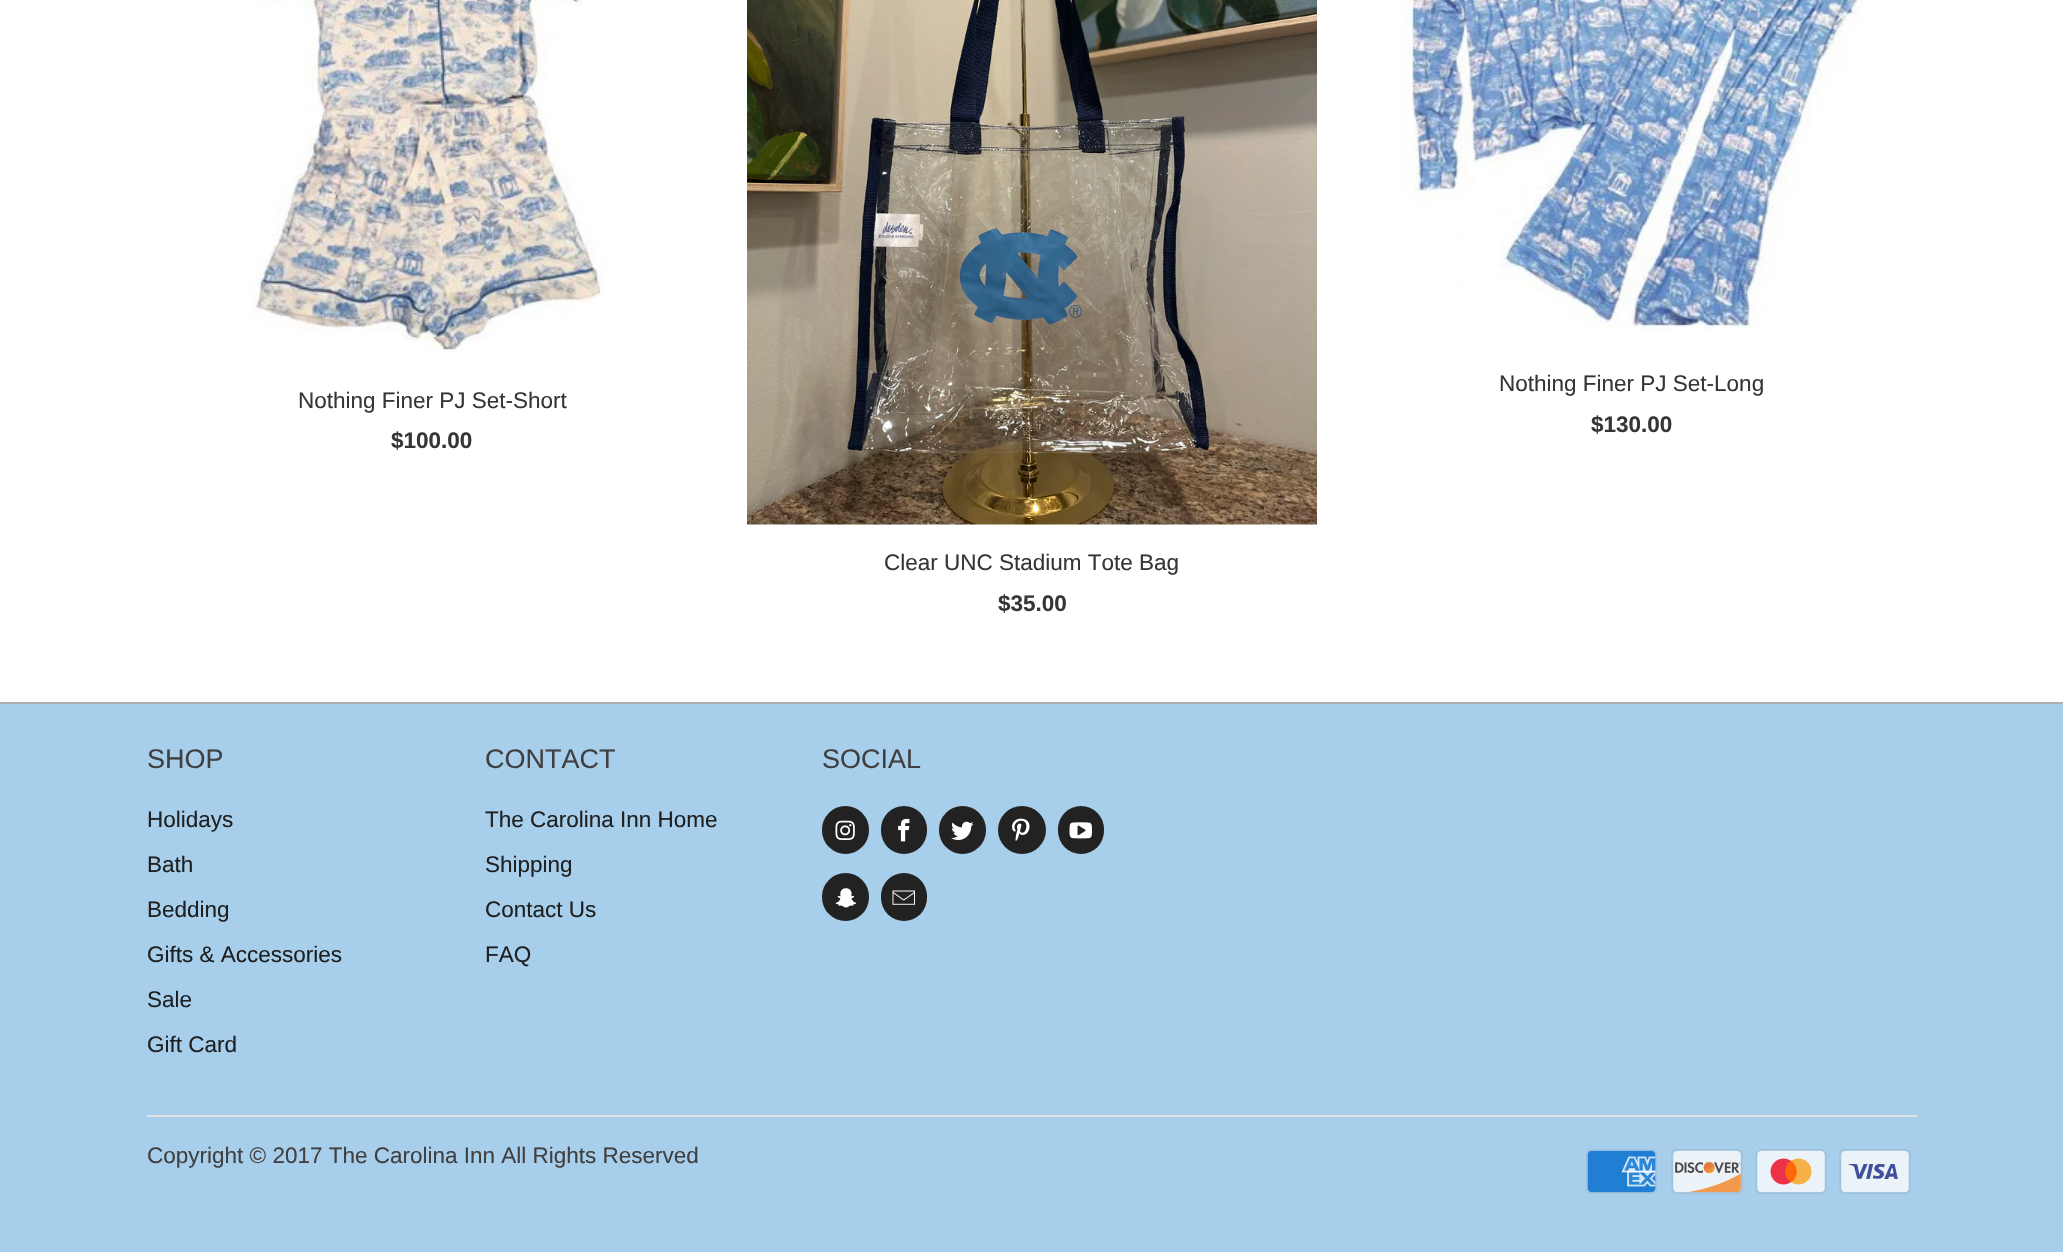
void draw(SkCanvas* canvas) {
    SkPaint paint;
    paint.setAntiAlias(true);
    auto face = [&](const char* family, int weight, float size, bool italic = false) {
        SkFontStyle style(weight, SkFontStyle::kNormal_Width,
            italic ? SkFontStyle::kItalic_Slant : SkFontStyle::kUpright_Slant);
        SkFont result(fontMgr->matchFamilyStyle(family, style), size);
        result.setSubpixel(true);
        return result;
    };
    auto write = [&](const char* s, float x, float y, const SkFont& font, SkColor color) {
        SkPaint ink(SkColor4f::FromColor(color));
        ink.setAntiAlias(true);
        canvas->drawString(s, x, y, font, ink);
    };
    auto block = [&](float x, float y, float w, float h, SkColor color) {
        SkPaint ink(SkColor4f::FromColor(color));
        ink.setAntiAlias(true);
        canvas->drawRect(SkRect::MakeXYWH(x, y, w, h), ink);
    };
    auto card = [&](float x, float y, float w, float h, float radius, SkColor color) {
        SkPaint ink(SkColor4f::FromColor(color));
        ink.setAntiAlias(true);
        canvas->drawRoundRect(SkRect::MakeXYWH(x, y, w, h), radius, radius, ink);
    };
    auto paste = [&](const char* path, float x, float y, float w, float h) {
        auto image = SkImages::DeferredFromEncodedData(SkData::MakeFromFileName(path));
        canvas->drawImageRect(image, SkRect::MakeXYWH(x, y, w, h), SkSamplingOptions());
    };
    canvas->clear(SK_ColorWHITE);
    paste("pic1.png", 252, 0, 354, 353);
    auto kFont1 = face("Liberation Sans", 400, 22.5f);
    write("Nothing Finer PJ Set-Short", 298, 408, kFont1, SkColorSetRGB(54, 54, 54));
    auto kFont2 = face("Liberation Sans", 700, 22.5f);
    write("$100.00", 391, 448, kFont2, SkColorSetRGB(54, 54, 54));
    paste("pic2.png", 1402, 0, 461, 330);
    write("Nothing Finer PJ Set-Long", 1499, 391, kFont1, SkColorSetRGB(54, 54, 54));
    write("$130.00", 1591, 432, kFont2, SkColorSetRGB(54, 54, 54));
    paste("pic3.png", 747, 0, 570, 525);
    write("Clear UNC Stadium Tote Bag", 884, 570, kFont1, SkColorSetRGB(54, 54, 54));
    write("$35.00", 998, 611, kFont2, SkColorSetRGB(54, 54, 54));
    block(0, 704, 2063, 548, SkColorSetRGB(167, 206, 234));
    block(0, 702, 2063, 2, SkColorSetRGB(175, 175, 175));
    auto kFont3 = face("Liberation Sans", 400, 27);
    write("SHOP", 147, 768, kFont3, SkColorSetRGB(64, 64, 64));
    write("Holidays", 147, 827, kFont1, SkColorSetRGB(31, 32, 33));
    write("Bath", 147, 872, kFont1, SkColorSetRGB(31, 32, 33));
    write("Bedding", 147, 917, kFont1, SkColorSetRGB(31, 32, 33));
    write("Gifts & Accessories", 147, 962, kFont1, SkColorSetRGB(31, 32, 33));
    write("Sale", 147, 1007, kFont1, SkColorSetRGB(31, 32, 33));
    write("Gift Card", 147, 1052, kFont1, SkColorSetRGB(31, 32, 33));
    write("CONTACT", 485, 768, kFont3, SkColorSetRGB(64, 64, 64));
    write("The Carolina Inn Home", 485, 827, kFont1, SkColorSetRGB(31, 32, 33));
    write("Shipping", 485, 872, kFont1, SkColorSetRGB(31, 32, 33));
    write("Contact Us", 485, 917, kFont1, SkColorSetRGB(31, 32, 33));
    write("FAQ", 485, 962, kFont1, SkColorSetRGB(31, 32, 33));
    write("SOCIAL", 822, 768, kFont3, SkColorSetRGB(64, 64, 64));
    card(822, 806, 47, 48, 23.5f, SkColorSetRGB(34, 34, 34));
    paste("pic4.png", 835, 820, 20, 20);
    card(881, 806, 46, 48, 23, SkColorSetRGB(34, 34, 34));
    paste("pic5.png", 898, 818, 12, 24);
    card(939, 806, 47, 48, 23.5f, SkColorSetRGB(34, 34, 34));
    paste("pic6.png", 951, 821, 23, 19);
    paint.setColor(SkColorSetRGB(34, 34, 34));
    canvas->drawCircle(1022, 830, 24, paint);
    paste("pic7.png", 1012, 818, 18, 23);
    card(1058, 806, 46, 48, 23, SkColorSetRGB(34, 34, 34));
    paste("pic8.png", 1069, 822, 23, 17);
    card(822, 873, 47, 48, 23.5f, SkColorSetRGB(34, 34, 34));
    paste("pic9.png", 835, 888, 22, 20);
    card(881, 873, 46, 48, 23, SkColorSetRGB(34, 34, 34));
    paste("pic10.png", 892, 890, 23, 15);
    block(147, 1115, 1770, 2, SkColorSetRGB(229, 227, 225));
    write("Copyright © 2017 The Carolina Inn All Rights Reserved", 147, 1163, kFont1, SkColorSetRGB(64, 64, 64));
    paste("pic11.png", 1586, 1149, 71, 45);
    paste("pic12.png", 1671, 1149, 72, 45);
    paste("pic13.png", 1755, 1149, 72, 45);
    paste("pic14.png", 1839, 1149, 72, 45);
}
